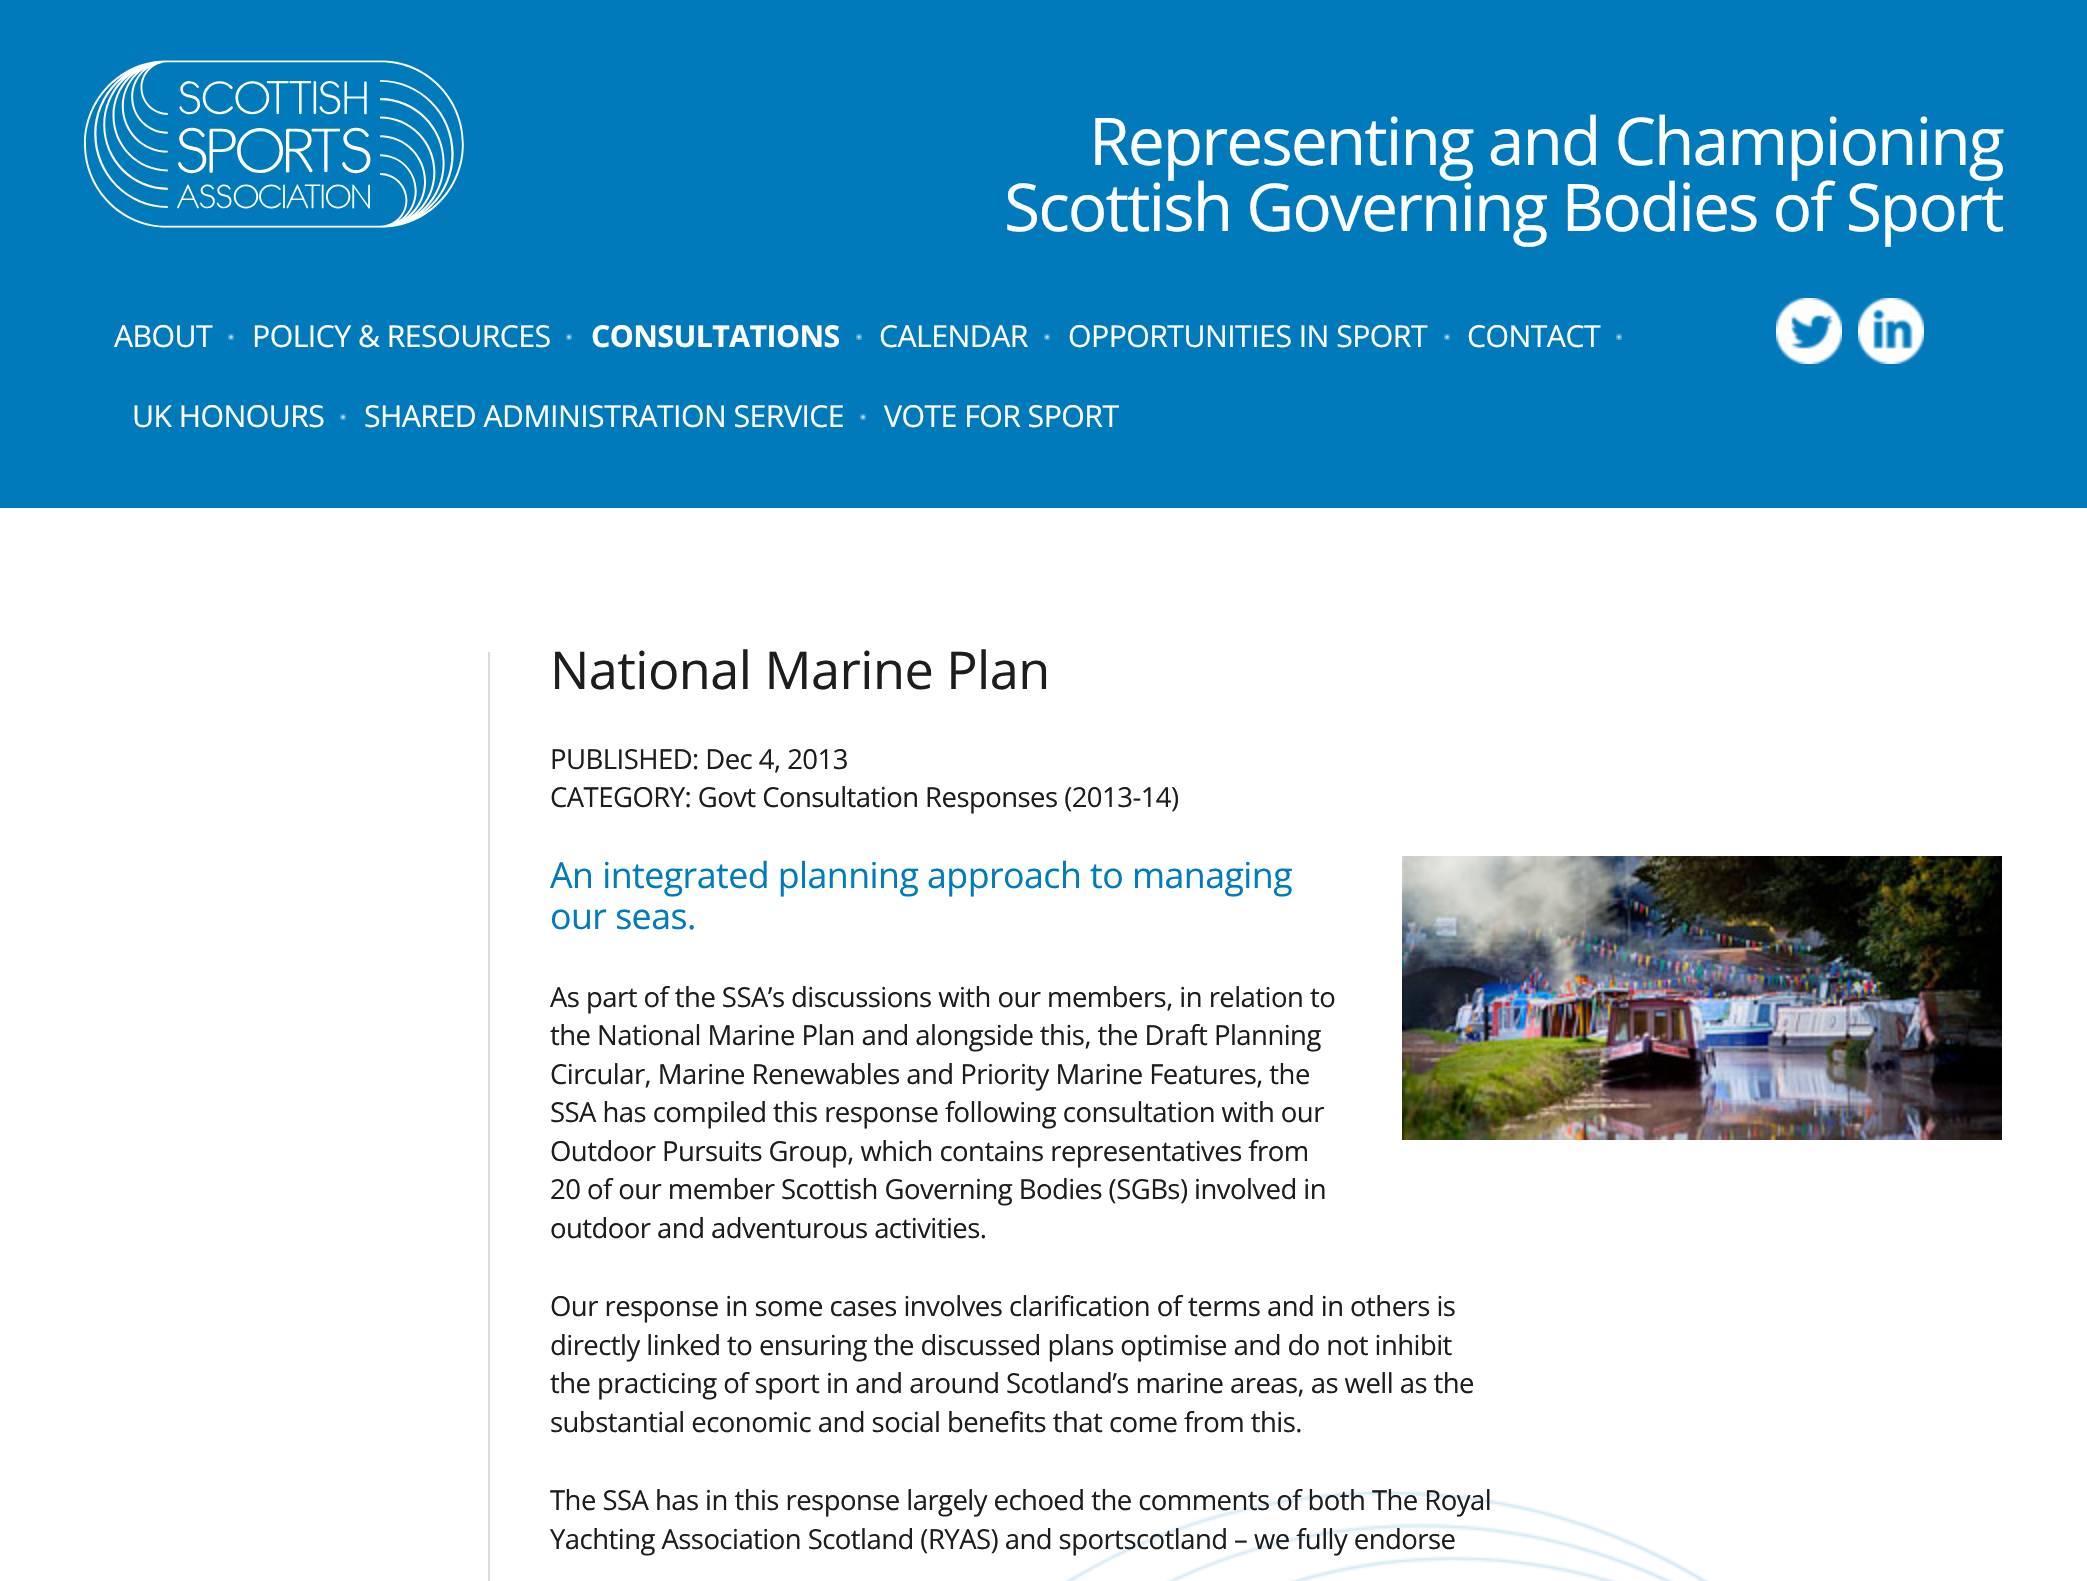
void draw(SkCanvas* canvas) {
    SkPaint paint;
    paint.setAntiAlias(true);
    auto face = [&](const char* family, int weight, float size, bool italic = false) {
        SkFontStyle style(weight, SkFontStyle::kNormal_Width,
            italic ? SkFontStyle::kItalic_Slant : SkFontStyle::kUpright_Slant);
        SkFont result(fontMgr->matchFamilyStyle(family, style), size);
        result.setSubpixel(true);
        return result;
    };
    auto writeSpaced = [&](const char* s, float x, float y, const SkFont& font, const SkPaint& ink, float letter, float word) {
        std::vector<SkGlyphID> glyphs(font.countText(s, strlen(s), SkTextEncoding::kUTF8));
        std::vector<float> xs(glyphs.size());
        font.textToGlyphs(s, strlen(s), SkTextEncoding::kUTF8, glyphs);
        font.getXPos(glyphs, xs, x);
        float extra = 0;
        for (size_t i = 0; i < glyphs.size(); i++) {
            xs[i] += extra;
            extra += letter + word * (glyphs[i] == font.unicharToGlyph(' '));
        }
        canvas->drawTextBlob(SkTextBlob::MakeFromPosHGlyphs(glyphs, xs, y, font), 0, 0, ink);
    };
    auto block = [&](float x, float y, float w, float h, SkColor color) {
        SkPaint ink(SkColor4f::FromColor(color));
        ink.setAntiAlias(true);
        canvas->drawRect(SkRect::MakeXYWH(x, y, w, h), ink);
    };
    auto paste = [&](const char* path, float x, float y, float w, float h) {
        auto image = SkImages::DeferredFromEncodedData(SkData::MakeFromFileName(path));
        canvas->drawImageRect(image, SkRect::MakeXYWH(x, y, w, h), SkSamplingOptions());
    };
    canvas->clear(SK_ColorWHITE);
    block(0, 0, 2087, 508, SkColorSetRGB(0, 122, 187));
    paste("pic1.png", 84, 60, 380, 168);
    auto kFont1 = face("Open Sans", 400, 66);
    paint.setColor(SK_ColorWHITE);
    writeSpaced("Representing and Championing", 1089, 165, kFont1, paint, -2, 0);
    writeSpaced("Scottish Governing Bodies of Sport", 1004, 231, kFont1, paint, -2, 0);
    paste("pic2.png", 228, 334, 6, 6);
    auto kFont2 = face("Open Sans", 400, 30.25f);
    writeSpaced("ABOUT", 114, 347, kFont2, paint, -0.55f, 0);
    paste("pic2.png", 566, 334, 6, 6);
    writeSpaced("POLICY & RESOURCES", 252, 347, kFont2, paint, -0.55f, 0);
    paste("pic2.png", 856, 334, 6, 6);
    auto kFont3 = face("Open Sans", 700, 30.25f);
    writeSpaced("CONSULTATIONS", 591, 347, kFont3, paint, -0.55f, 0);
    paste("pic2.png", 1044, 334, 6, 6);
    writeSpaced("CALENDAR", 879, 347, kFont2, paint, -0.55f, 0);
    paste("pic2.png", 1444, 334, 6, 6);
    writeSpaced("OPPORTUNITIES IN SPORT", 1068, 347, kFont2, paint, -0.55f, 0);
    paste("pic2.png", 1616, 334, 6, 6);
    writeSpaced("CONTACT", 1467, 347, kFont2, paint, -0.55f, 0);
    paste("pic2.png", 340, 414, 6, 6);
    writeSpaced("UK HONOURS", 132, 427, kFont2, paint, -0.55f, 0);
    paste("pic2.png", 860, 414, 6, 6);
    writeSpaced("SHARED ADMINISTRATION SERVICE", 364, 427, kFont2, paint, -0.55f, 0);
    writeSpaced("VOTE FOR SPORT", 884, 427, kFont2, paint, -0.55f, 0);
    paste("pic3.png", 1776, 298, 66, 66);
    paste("pic4.png", 1858, 298, 66, 66);
    paste("pic5.png", 1065, 1491, 644, 90);
    block(488, 652, 2, 929, SkColorSetRGB(219, 219, 219));
    auto kFont4 = face("Open Sans", 400, 52.25f);
    paint.setColor(SkColorSetRGB(29, 29, 29));
    writeSpaced("National Marine Plan", 550, 689, kFont4, paint, -0.55f, 0);
    auto kFont5 = face("Open Sans", 400, 27.5f);
    writeSpaced("PUBLISHED: Dec 4, 2013", 550, 769, kFont5, paint, -0.55f, 0);
    writeSpaced("CATEGORY: Govt Consultation Responses (2013-14)", 550, 807, kFont5, paint, -0.55f, 0);
    auto kFont6 = face("Open Sans", 400, 35.75f);
    paint.setColor(SkColorSetRGB(0, 123, 187));
    writeSpaced("An integrated planning approach to managing", 550, 888, kFont6, paint, -0.55f, 0);
    writeSpaced("our seas.", 550, 929, kFont6, paint, -0.55f, 0);
    paste("pic6.png", 1402, 856, 600, 284);
    paint.setColor(SkColorSetRGB(29, 29, 29));
    writeSpaced("As part of the SSA’s discussions with our members, in relation to", 550, 1007, kFont5, paint, -0.55f, 0);
    writeSpaced("the National Marine Plan and alongside this, the Draft Planning", 550, 1045, kFont5, paint, -0.55f, 0);
    writeSpaced("Circular, Marine Renewables and Priority Marine Features, the", 550, 1084, kFont5, paint, -0.55f, 0);
    writeSpaced("SSA has compiled this response following consultation with our", 550, 1122, kFont5, paint, -0.55f, 0);
    writeSpaced("Outdoor Pursuits Group, which contains representatives from", 550, 1161, kFont5, paint, -0.55f, 0);
    writeSpaced("20 of our member Scottish Governing Bodies (SGBs) involved in", 550, 1199, kFont5, paint, -0.55f, 0);
    writeSpaced("outdoor and adventurous activities.", 550, 1238, kFont5, paint, -0.55f, 0);
    writeSpaced("Our response in some cases involves clarification of terms and in others is", 550, 1316, kFont5, paint, -0.55f, 0);
    writeSpaced("directly linked to ensuring the discussed plans optimise and do not inhibit", 550, 1355, kFont5, paint, -0.55f, 0);
    writeSpaced("the practicing of sport in and around Scotland’s marine areas, as well as the", 550, 1393, kFont5, paint, -0.55f, 0);
    writeSpaced("substantial economic and social benefits that come from this.", 550, 1432, kFont5, paint, -0.55f, 0);
    writeSpaced("The SSA has in this response largely echoed the comments of both The Royal", 550, 1510, kFont5, paint, -0.55f, 0);
    writeSpaced("Yachting Association Scotland (RYAS) and sportscotland – we fully endorse", 550, 1549, kFont5, paint, -0.55f, 0);
}
